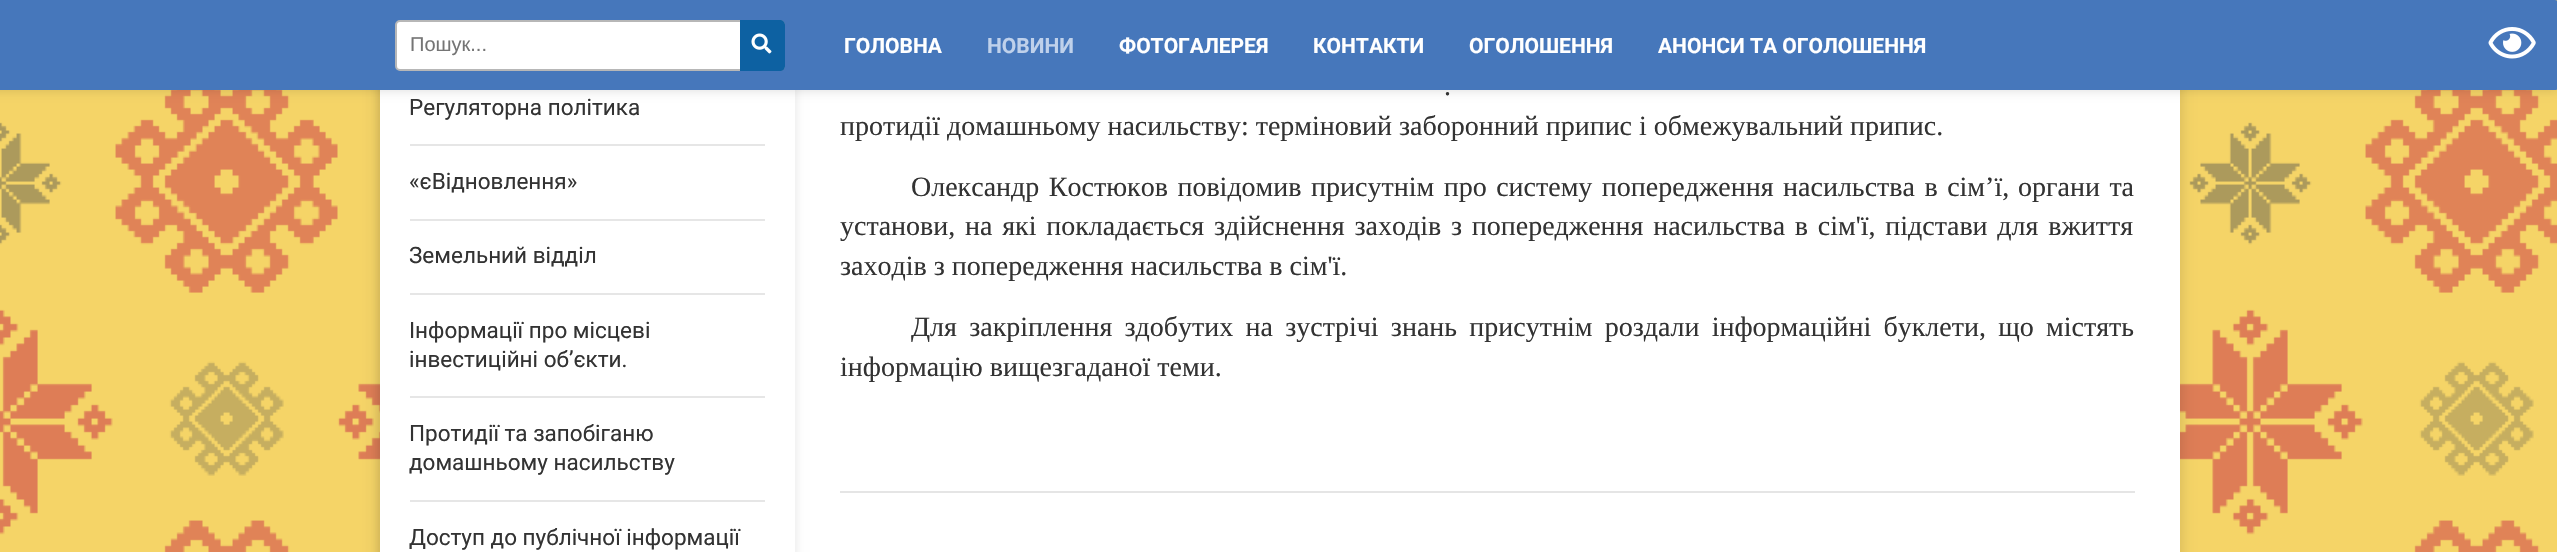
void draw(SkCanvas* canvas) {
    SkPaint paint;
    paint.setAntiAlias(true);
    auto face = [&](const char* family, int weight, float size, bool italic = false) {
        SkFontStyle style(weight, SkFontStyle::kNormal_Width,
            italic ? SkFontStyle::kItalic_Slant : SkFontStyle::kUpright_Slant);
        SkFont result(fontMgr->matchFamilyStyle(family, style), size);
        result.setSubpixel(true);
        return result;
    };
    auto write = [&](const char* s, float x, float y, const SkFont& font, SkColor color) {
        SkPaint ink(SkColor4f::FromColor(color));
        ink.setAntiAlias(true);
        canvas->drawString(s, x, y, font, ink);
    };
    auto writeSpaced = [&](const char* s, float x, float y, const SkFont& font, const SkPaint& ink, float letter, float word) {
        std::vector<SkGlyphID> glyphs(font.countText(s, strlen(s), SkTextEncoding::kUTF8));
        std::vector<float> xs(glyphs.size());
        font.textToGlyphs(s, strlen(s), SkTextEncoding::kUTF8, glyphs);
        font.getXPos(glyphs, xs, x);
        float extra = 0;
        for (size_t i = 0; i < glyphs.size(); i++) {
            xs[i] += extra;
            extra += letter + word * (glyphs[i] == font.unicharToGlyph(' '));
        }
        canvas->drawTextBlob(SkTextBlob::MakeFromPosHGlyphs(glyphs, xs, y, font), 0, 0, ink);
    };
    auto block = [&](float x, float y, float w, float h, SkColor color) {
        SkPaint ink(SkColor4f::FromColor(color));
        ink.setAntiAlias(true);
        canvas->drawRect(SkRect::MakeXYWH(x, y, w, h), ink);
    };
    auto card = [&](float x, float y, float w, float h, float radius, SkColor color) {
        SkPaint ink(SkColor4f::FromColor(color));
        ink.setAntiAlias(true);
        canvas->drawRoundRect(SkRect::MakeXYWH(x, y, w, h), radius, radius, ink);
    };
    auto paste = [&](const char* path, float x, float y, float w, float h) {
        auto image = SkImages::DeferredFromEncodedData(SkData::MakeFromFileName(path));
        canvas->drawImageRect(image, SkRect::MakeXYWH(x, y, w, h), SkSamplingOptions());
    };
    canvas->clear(SkColorSetRGB(245, 212, 103));
    paste("pic1.png", 0, 90, 2557, 462);
    paint.setColor(SkColorSetARGB(38, 0, 0, 0));
    paint.setMaskFilter(SkMaskFilter::MakeBlur(kNormal_SkBlurStyle, 7.5f));
    canvas->drawRoundRect(SkRect::MakeXYWH(380, -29, 1800, 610), 6, 6, paint);
    paint.setMaskFilter(nullptr);
    block(380, 90, 1800, 462, SK_ColorWHITE);
    canvas->save();
    canvas->clipPath(SkPathBuilder(SkPathFillType::kEvenOdd).moveTo(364, 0).lineTo(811, 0).lineTo(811, 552).lineTo(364, 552).close().moveTo(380, -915).lineTo(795, -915).lineTo(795, 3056).lineTo(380, 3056).close().detach(), true);
    paint.setColor(SkColorSetARGB(26, 0, 0, 0));
    paint.setMaskFilter(SkMaskFilter::MakeBlur(kNormal_SkBlurStyle, 5));
    canvas->drawRect(SkRect::MakeXYWH(380, -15, 415, 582), paint);
    paint.setMaskFilter(nullptr);
    canvas->restore();
    auto kFont1 = face("Roboto", 400, 22.5f);
    write("Регуляторна політика", 409, 115, kFont1, SkColorSetRGB(51, 51, 51));
    block(410, 144, 355, 2, SkColorSetRGB(230, 230, 230));
    write("«єВідновлення»", 409, 189, kFont1, SkColorSetRGB(51, 51, 51));
    block(410, 219, 355, 2, SkColorSetRGB(230, 230, 230));
    write("Земельний відділ", 409, 263, kFont1, SkColorSetRGB(51, 51, 51));
    block(410, 293, 355, 2, SkColorSetRGB(230, 230, 230));
    write("Інформації про місцеві", 409, 338, kFont1, SkColorSetRGB(51, 51, 51));
    write("інвестиційні об’єкти.", 409, 367, kFont1, SkColorSetRGB(51, 51, 51));
    block(410, 396, 355, 2, SkColorSetRGB(230, 230, 230));
    write("Протидії та запобіганю", 409, 441, kFont1, SkColorSetRGB(51, 51, 51));
    write("домашньому насильству", 409, 470, kFont1, SkColorSetRGB(51, 51, 51));
    block(410, 500, 355, 2, SkColorSetRGB(230, 230, 230));
    write("Доступ до публічної інформації", 409, 545, kFont1, SkColorSetRGB(51, 51, 51));
    paint.setMaskFilter(SkMaskFilter::MakeBlur(kNormal_SkBlurStyle, 5));
    canvas->drawRoundRect(SkRect::MakeXYWH(-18, 2, 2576, 90), 3, 3, paint);
    paint.setMaskFilter(nullptr);
    card(-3, 0, 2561, 90, 3, SkColorSetRGB(70, 119, 187));
    auto kFont2 = face("Roboto", 700, 21);
    write("ГОЛОВНА", 844, 53, kFont2, SK_ColorWHITE);
    write("НОВИНИ", 987, 53, kFont2, SkColorSetRGB(191, 209, 235));
    write("ФОТОГАЛЕРЕЯ", 1119, 53, kFont2, SK_ColorWHITE);
    write("КОНТАКТИ", 1313, 53, kFont2, SK_ColorWHITE);
    write("ОГОЛОШЕННЯ", 1469, 53, kFont2, SK_ColorWHITE);
    write("АНОНСИ ТА ОГОЛОШЕННЯ", 1658, 53, kFont2, SK_ColorWHITE);
    auto kFont3 = face("Liberation Serif", 400, 28);
    paint.setColor(SkColorSetRGB(51, 51, 51));
    writeSpaced(".", 1444, 95, kFont3, paint, 0, 1);
    write("протидії домашньому насильству: терміновий заборонний припис і обмежувальний припис.", 840, 135, kFont3, SkColorSetRGB(51, 51, 51));
    writeSpaced("Олександр Костюков повідомив присутнім про систему попередження насильства в сім’ї,", 911, 196, kFont3, paint, 0, 2.5f);
    writeSpaced("органи та", 2018, 196, kFont3, paint, 0, 2.5f);
    writeSpaced("установи, на які покладається здійснення заходів з попередження насильства в сім'ї, підстави для вжиття", 840, 235, kFont3, paint, 0, 2.75f);
    write("заходів з попередження насильства в сім'ї.", 840, 275, kFont3, SkColorSetRGB(51, 51, 51));
    writeSpaced("Для закріплення здобутих на зустрічі знань присутнім роздали інформаційні буклети, що містять", 911, 336, kFont3, paint, 0, 5.25f);
    write("інформацію вищезгаданої теми.", 840, 376, kFont3, SkColorSetRGB(51, 51, 51));
    block(840, 491, 1295, 2, SkColorSetRGB(229, 229, 229));
    paint.setColor(SK_ColorWHITE);
    canvas->drawRoundRect(SkRect::MakeXYWH(396, 21, 388, 49), 4, 4, paint);
    paint.setStyle(SkPaint::kStroke_Style);
    paint.setStrokeWidth(2);
    paint.setColor(SkColorSetRGB(183, 183, 183));
    canvas->drawRoundRect(SkRect::MakeXYWH(396, 21, 388, 49), 4, 4, paint);
    auto kFont4 = face("Liberation Sans", 400, 20);
    write("Пошук...", 410, 51, kFont4, SkColorSetRGB(117, 117, 117));
    paint.setStyle(SkPaint::kFill_Style);
    paint.setColor(SkColorSetRGB(13, 97, 162));
    canvas->drawPath(SkPathBuilder().moveTo(740, 20).lineTo(780, 20).cubicTo(783, 20, 785, 22, 785, 25).lineTo(785, 66).cubicTo(785, 69, 783, 71, 780, 71).lineTo(740, 71).close().detach(), paint);
    paste("pic2.png", 751, 33, 21, 21);
    paste("pic3.png", 2488, 27, 48, 32);
}
